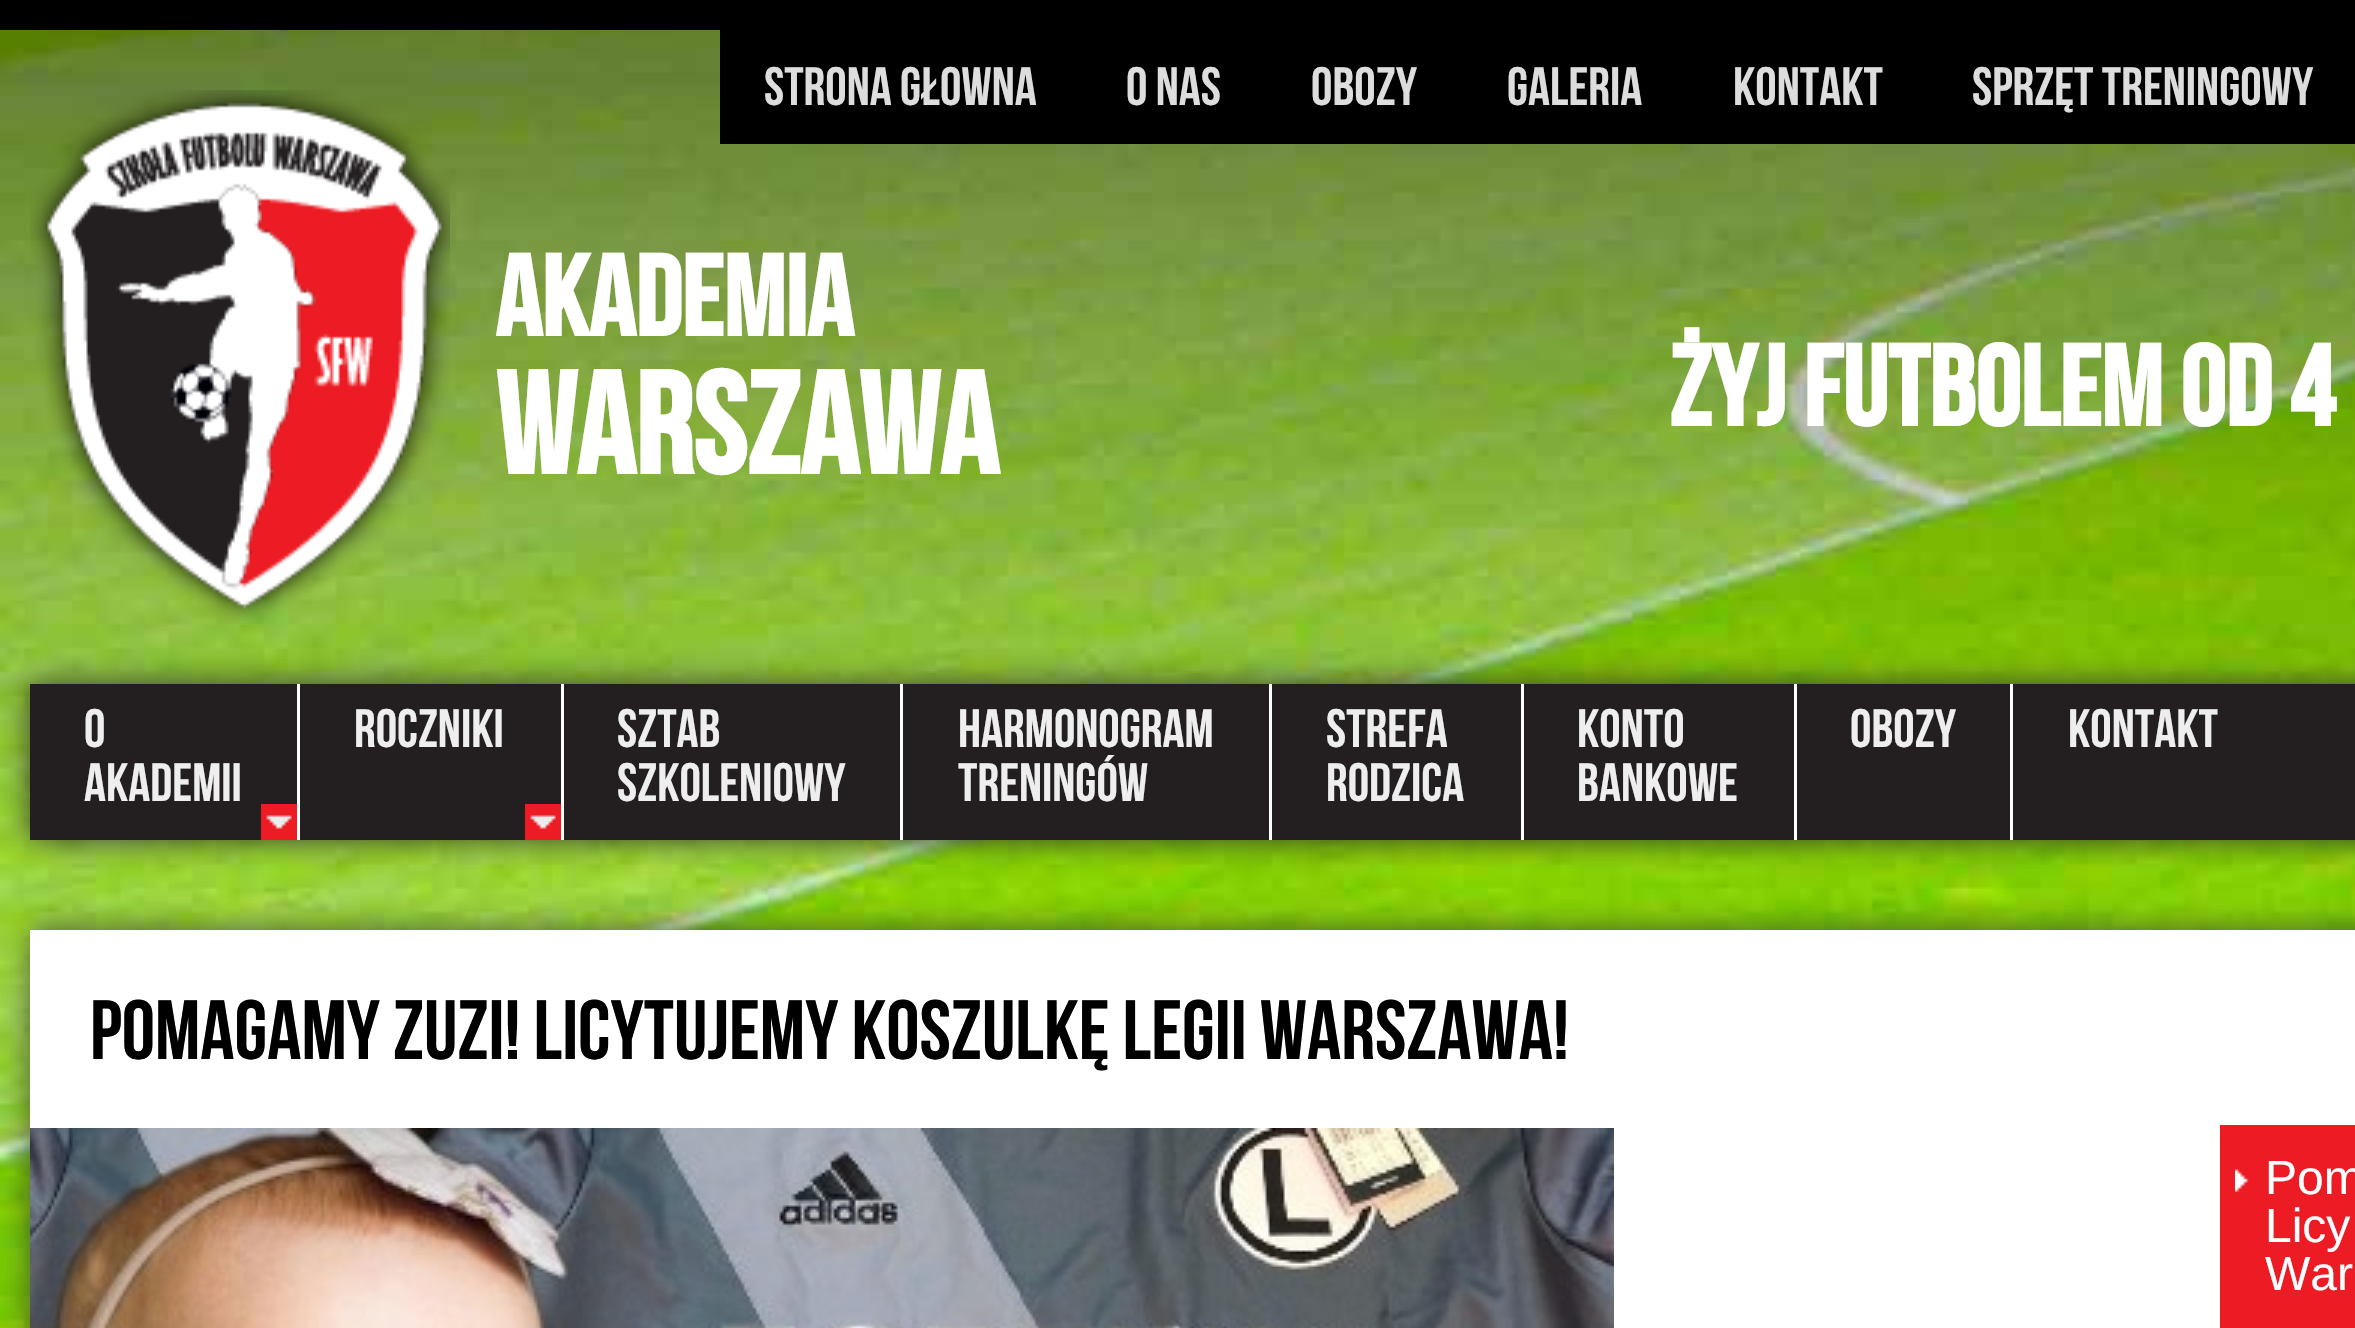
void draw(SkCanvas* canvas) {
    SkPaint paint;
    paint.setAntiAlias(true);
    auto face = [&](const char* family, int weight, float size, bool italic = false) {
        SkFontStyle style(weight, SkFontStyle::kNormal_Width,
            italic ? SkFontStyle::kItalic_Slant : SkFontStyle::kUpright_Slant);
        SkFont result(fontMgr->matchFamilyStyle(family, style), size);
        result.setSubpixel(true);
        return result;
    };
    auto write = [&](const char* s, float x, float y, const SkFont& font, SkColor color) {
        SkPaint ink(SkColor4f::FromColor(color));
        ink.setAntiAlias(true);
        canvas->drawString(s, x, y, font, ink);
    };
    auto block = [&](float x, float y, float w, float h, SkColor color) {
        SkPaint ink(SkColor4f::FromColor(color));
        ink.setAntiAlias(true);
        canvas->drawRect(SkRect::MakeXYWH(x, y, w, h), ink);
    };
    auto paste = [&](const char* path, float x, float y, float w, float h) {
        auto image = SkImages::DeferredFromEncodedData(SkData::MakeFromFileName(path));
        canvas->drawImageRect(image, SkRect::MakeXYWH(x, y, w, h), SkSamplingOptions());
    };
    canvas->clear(SK_ColorWHITE);
    paste("pic1.png", 0, 30, 2355, 1298);
    block(0, 0, 2355, 30, SK_ColorBLACK);
    paste("pic2.png", 30, 90, 420, 534);
    auto kFont1 = face("Bebas Neue", 700, 114);
    write("Akademia", 495, 336, kFont1, SK_ColorWHITE);
    auto kFont2 = face("Bebas Neue", 700, 144);
    write("Warszawa", 495, 474, kFont2, SK_ColorWHITE);
    block(720, 30, 1635, 114, SK_ColorBLACK);
    auto kFont3 = face("Bebas Neue", 400, 54);
    write("Strona głowna", 764, 105, kFont3, SkColorSetRGB(221, 221, 221));
    write("O nas", 1126, 105, kFont3, SkColorSetRGB(221, 221, 221));
    write("Obozy", 1311, 105, kFont3, SkColorSetRGB(221, 221, 221));
    write("Galeria", 1507, 105, kFont3, SkColorSetRGB(221, 221, 221));
    write("Kontakt", 1733, 105, kFont3, SkColorSetRGB(221, 221, 221));
    write("Sprzęt treningowy", 1972, 105, kFont3, SkColorSetRGB(221, 221, 221));
    write("Żyj futbolem od 4", 1669, 426, kFont1, SK_ColorWHITE);
    paint.setColor(SkColorSetARGB(242, 50, 50, 50));
    paint.setMaskFilter(SkMaskFilter::MakeBlur(kNormal_SkBlurStyle, 15));
    canvas->drawRect(SkRect::MakeXYWH(30, 684, 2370, 156), paint);
    paint.setMaskFilter(nullptr);
    block(30, 684, 2325, 156, SkColorSetRGB(35, 31, 32));
    block(297, 684, 3, 156, SK_ColorWHITE);
    paste("pic3.png", 261, 804, 36, 36);
    write("O", 84, 747, kFont3, SkColorSetRGB(238, 238, 238));
    write("Akademii", 84, 801, kFont3, SkColorSetRGB(238, 238, 238));
    block(561, 684, 3, 156, SK_ColorWHITE);
    paste("pic3.png", 525, 804, 36, 36);
    write("Roczniki", 354, 747, kFont3, SkColorSetRGB(238, 238, 238));
    block(900, 684, 3, 156, SK_ColorWHITE);
    write("Sztab", 617, 747, kFont3, SkColorSetRGB(238, 238, 238));
    write("szkoleniowy", 617, 801, kFont3, SkColorSetRGB(238, 238, 238));
    block(1269, 684, 3, 156, SK_ColorWHITE);
    write("Harmonogram", 958, 747, kFont3, SkColorSetRGB(238, 238, 238));
    write("treningów", 958, 801, kFont3, SkColorSetRGB(238, 238, 238));
    block(1521, 684, 3, 156, SK_ColorWHITE);
    write("Strefa", 1326, 747, kFont3, SkColorSetRGB(238, 238, 238));
    write("Rodzica", 1326, 801, kFont3, SkColorSetRGB(238, 238, 238));
    block(1794, 684, 3, 156, SK_ColorWHITE);
    write("Konto", 1577, 747, kFont3, SkColorSetRGB(238, 238, 238));
    write("Bankowe", 1577, 801, kFont3, SkColorSetRGB(238, 238, 238));
    block(2010, 684, 3, 156, SK_ColorWHITE);
    write("Obozy", 1850, 747, kFont3, SkColorSetRGB(238, 238, 238));
    write("Kontakt", 2068, 747, kFont3, SkColorSetRGB(238, 238, 238));
    paint.setColor(SkColorSetARGB(191, 50, 50, 50));
    paint.setMaskFilter(SkMaskFilter::MakeBlur(kNormal_SkBlurStyle, 15));
    canvas->drawRect(SkRect::MakeXYWH(30, 930, 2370, 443), paint);
    paint.setMaskFilter(nullptr);
    block(30, 930, 2325, 398, SK_ColorWHITE);
    auto kFont4 = face("Bebas Neue", 400, 84);
    write("Pomagamy Zuzi! Licytujemy koszulkę Legii Warszawa!", 90, 1059, kFont4, SK_ColorBLACK);
    paste("pic4.png", 30, 1128, 1584, 200);
    block(2220, 1125, 135, 203, SkColorSetRGB(237, 28, 36));
    paste("pic5.png", 2235, 1169, 14, 23);
    auto kFont5 = face("Liberation Sans", 400, 48);
    write("Pom", 2265, 1194, kFont5, SK_ColorWHITE);
    write("Licy", 2265, 1242, kFont5, SK_ColorWHITE);
    write("War", 2265, 1290, kFont5, SK_ColorWHITE);
}
